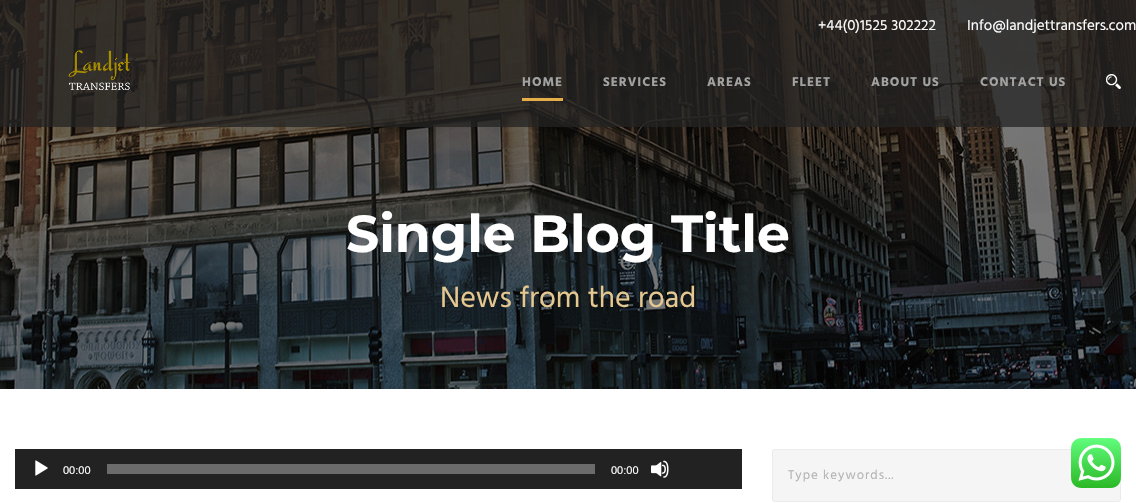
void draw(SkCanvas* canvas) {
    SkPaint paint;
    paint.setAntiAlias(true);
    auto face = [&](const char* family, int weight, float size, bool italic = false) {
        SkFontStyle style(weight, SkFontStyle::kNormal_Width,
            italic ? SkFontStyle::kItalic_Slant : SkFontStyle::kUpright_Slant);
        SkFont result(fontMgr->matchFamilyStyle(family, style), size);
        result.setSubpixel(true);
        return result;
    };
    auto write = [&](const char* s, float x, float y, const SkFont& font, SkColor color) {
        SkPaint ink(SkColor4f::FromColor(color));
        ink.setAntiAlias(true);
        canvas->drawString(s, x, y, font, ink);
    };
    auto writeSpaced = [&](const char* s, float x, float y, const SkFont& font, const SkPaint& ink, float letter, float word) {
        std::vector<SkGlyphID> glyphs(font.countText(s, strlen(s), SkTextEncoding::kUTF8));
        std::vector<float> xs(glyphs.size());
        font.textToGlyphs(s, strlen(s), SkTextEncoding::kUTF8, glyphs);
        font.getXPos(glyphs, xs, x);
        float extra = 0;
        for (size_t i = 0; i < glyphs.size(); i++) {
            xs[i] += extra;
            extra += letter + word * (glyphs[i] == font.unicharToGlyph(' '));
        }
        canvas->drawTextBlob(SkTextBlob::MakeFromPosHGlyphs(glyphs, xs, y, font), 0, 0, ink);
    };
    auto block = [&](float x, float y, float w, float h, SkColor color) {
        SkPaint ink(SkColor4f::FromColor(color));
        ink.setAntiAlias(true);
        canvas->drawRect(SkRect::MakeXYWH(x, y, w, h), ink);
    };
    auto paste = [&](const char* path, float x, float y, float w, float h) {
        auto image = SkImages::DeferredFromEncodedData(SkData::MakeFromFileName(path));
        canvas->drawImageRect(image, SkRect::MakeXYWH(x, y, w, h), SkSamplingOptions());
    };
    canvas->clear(SK_ColorWHITE);
    paste("pic3.png", 0, 0, 1136, 389);
    block(0, 0, 1136, 127, SkColorSetARGB(191, 35, 35, 35));
    paste("pic1.png", 68, 50, 62, 40);
    auto kFont1 = face("Hind", 400, 15);
    write("+44(0)1525 302222", 818, 30, kFont1, SK_ColorWHITE);
    write("Info@landjettransfers.com", 967, 30, kFont1, SK_ColorWHITE);
    auto kFont2 = face("Hind", 700, 13);
    paint.setColor(SkColorSetRGB(162, 162, 162));
    writeSpaced("HOME", 522, 86, kFont2, paint, 1, 0);
    writeSpaced("SERVICES", 603, 86, kFont2, paint, 1, 0);
    writeSpaced("AREAS", 707, 86, kFont2, paint, 1, 0);
    writeSpaced("FLEET", 792, 86, kFont2, paint, 1, 0);
    writeSpaced("ABOUT US", 871, 86, kFont2, paint, 1, 0);
    writeSpaced("CONTACT US", 980, 86, kFont2, paint, 1, 0);
    paste("pic2.png", 1106, 74, 15, 15);
    block(522, 98, 41, 3, SkColorSetRGB(230, 174, 72));
    auto kFont3 = face("Montserrat", 700, 52);
    write("Single Blog Title", 346, 252, kFont3, SK_ColorWHITE);
    auto kFont4 = face("Hind", 400, 30);
    write("News from the road", 440, 307, kFont4, SkColorSetRGB(229, 199, 144));
    block(15, 449, 727, 40, SkColorSetRGB(34, 34, 34));
    paste("pic4.png", 35, 460, 13, 16);
    auto kFont5 = face("Liberation Sans", 400, 11);
    write("00:00", 63, 474, kFont5, SK_ColorWHITE);
    block(107, 464, 488, 10, SkColorSetRGB(107, 107, 107));
    write("00:00", 611, 474, kFont5, SK_ColorWHITE);
    paste("pic5.png", 651, 460, 18, 18);
    paint.setColor(SkColorSetRGB(245, 245, 245));
    canvas->drawRoundRect(SkRect::MakeXYWH(772.5f, 449.5f, 348, 52), 2.5f, 2.5f, paint);
    paint.setStyle(SkPaint::kStroke_Style);
    paint.setStrokeWidth(1);
    paint.setColor(SkColorSetRGB(235, 235, 235));
    canvas->drawRoundRect(SkRect::MakeXYWH(772.5f, 449.5f, 348, 52), 2.5f, 2.5f, paint);
    auto kFont6 = face("Hind", 400, 13);
    paint.setStyle(SkPaint::kFill_Style);
    paint.setColor(SkColorSetRGB(181, 181, 181));
    writeSpaced("Type keywords...", 788, 479, kFont6, paint, 1, 0);
    paste("pic6.png", 1071, 438, 50, 50);
}
